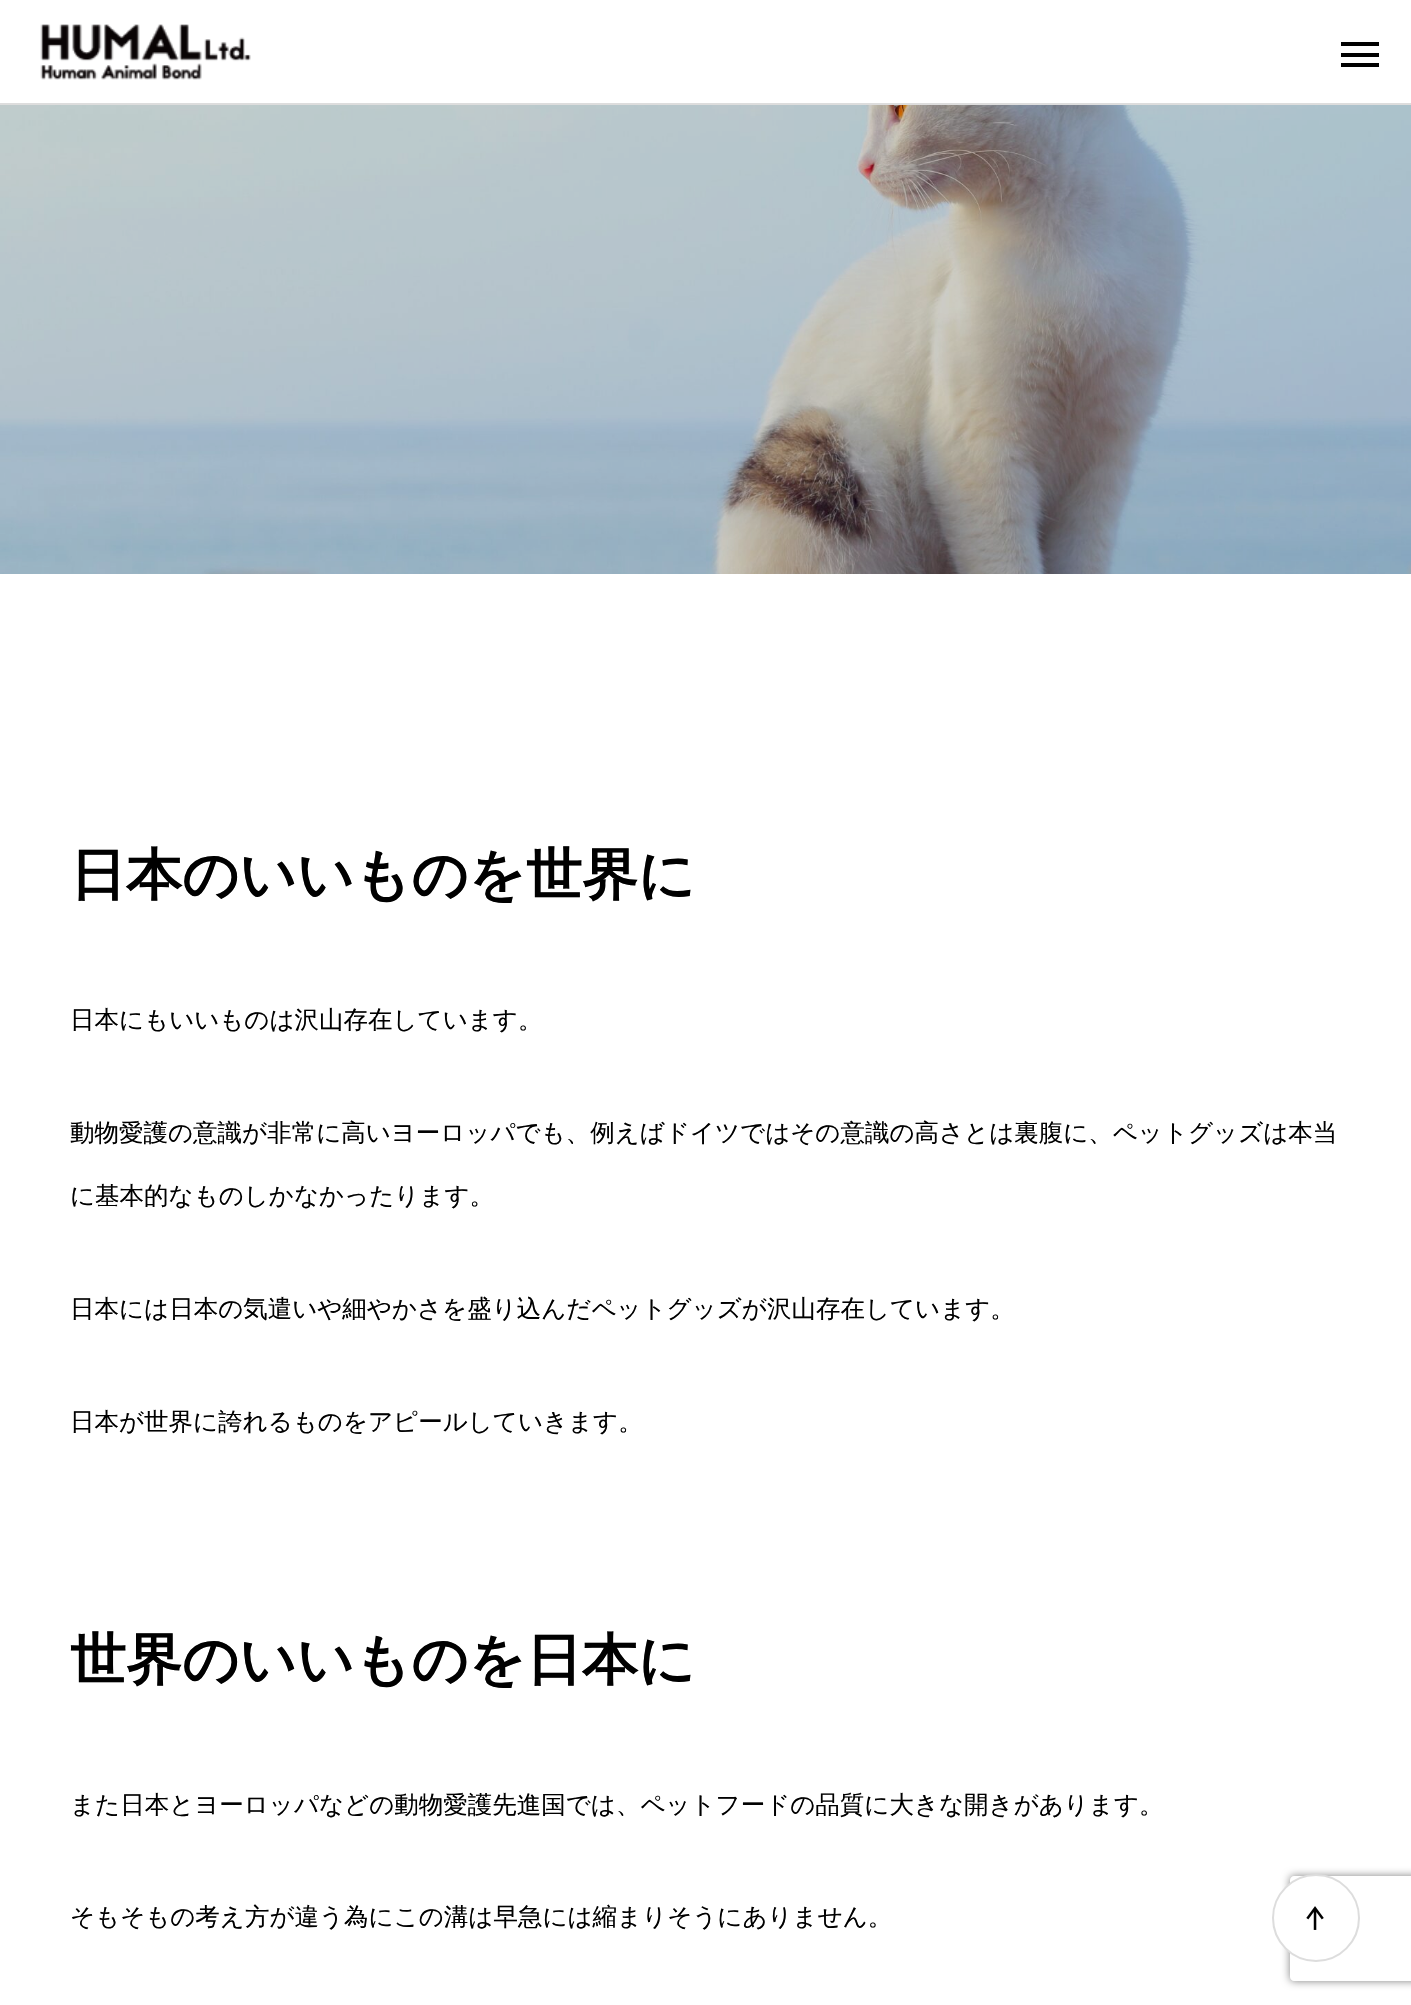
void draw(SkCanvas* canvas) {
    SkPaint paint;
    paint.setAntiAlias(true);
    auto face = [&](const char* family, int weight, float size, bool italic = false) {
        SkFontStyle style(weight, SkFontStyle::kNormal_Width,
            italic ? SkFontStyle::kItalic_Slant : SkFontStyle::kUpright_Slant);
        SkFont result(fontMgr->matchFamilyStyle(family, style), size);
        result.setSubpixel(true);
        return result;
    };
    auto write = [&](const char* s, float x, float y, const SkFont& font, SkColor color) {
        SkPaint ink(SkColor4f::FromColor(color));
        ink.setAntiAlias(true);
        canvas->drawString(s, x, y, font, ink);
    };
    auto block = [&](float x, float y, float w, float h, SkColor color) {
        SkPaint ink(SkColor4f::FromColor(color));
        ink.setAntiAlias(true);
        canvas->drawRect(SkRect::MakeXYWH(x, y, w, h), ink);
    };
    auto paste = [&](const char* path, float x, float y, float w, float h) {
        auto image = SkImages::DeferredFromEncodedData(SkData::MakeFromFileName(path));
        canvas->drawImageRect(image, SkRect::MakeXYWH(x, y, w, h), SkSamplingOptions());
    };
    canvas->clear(SK_ColorWHITE);
    block(0, 103, 1411, 2, SkColorSetRGB(221, 221, 221));
    paste("pic1.png", 40, 24, 211, 56);
    block(1341, 42, 38, 4, SK_ColorBLACK);
    block(1341, 53, 38, 4, SK_ColorBLACK);
    block(1341, 63, 38, 4, SK_ColorBLACK);
    paste("pic2.png", 0, 105, 1411, 469);
    auto kFont1 = face("WenQuanYi Zen Hei", 700, 56);
    write("日本のいいものを世界に", 70, 894, kFont1, SK_ColorBLACK);
    auto kFont2 = face("WenQuanYi Zen Hei", 500, 24.5f);
    write("日本にもいいものは沢山存在しています。", 70, 1028, kFont2, SK_ColorBLACK);
    write("動物愛護の意識が非常に高いヨーロッパでも、例えばドイツではその意識の高さとは裏腹に、ペットグッズは本当", 70, 1141, kFont2, SK_ColorBLACK);
    write("に基本的なものしかなかったります。", 70, 1204, kFont2, SK_ColorBLACK);
    write("日本には日本の気遣いや細やかさを盛り込んだペットグッズが沢山存在しています。", 70, 1317, kFont2, SK_ColorBLACK);
    write("日本が世界に誇れるものをアピールしていきます。", 70, 1430, kFont2, SK_ColorBLACK);
    write("世界のいいものを日本に", 70, 1679, kFont1, SK_ColorBLACK);
    write("また日本とヨーロッパなどの動物愛護先進国では、ペットフードの品質に大きな開きがあります。", 70, 1813, kFont2, SK_ColorBLACK);
    write("そもそもの考え方が違う為にこの溝は早急には縮まりそうにありません。", 70, 1925, kFont2, SK_ColorBLACK);
    canvas->save();
    canvas->clipPath(SkPathBuilder(SkPathFillType::kEvenOdd).moveTo(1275, 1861).lineTo(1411, 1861).lineTo(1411, 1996).lineTo(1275, 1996).close().moveTo(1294, 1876).lineTo(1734, 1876).cubicTo(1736, 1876, 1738, 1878, 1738, 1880).lineTo(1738, 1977).cubicTo(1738, 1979, 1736, 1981, 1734, 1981).lineTo(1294, 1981).cubicTo(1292, 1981, 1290, 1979, 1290, 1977).lineTo(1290, 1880).cubicTo(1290, 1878, 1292, 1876, 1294, 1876).close().detach(), true);
    paint.setColor(SkColorSetRGB(128, 128, 128));
    paint.setMaskFilter(SkMaskFilter::MakeBlur(kNormal_SkBlurStyle, 4.5f));
    canvas->drawRoundRect(SkRect::MakeXYWH(1290, 1876, 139, 105), 4, 4, paint);
    paint.setMaskFilter(nullptr);
    canvas->restore();
    paint.setColor(SK_ColorWHITE);
    canvas->drawCircle(1316, 1918, 43, paint);
    paint.setStyle(SkPaint::kStroke_Style);
    paint.setStrokeWidth(2);
    paint.setColor(SkColorSetRGB(221, 221, 221));
    canvas->drawCircle(1316, 1918, 43, paint);
    paste("pic3.png", 1306, 1906, 18, 24);
}
